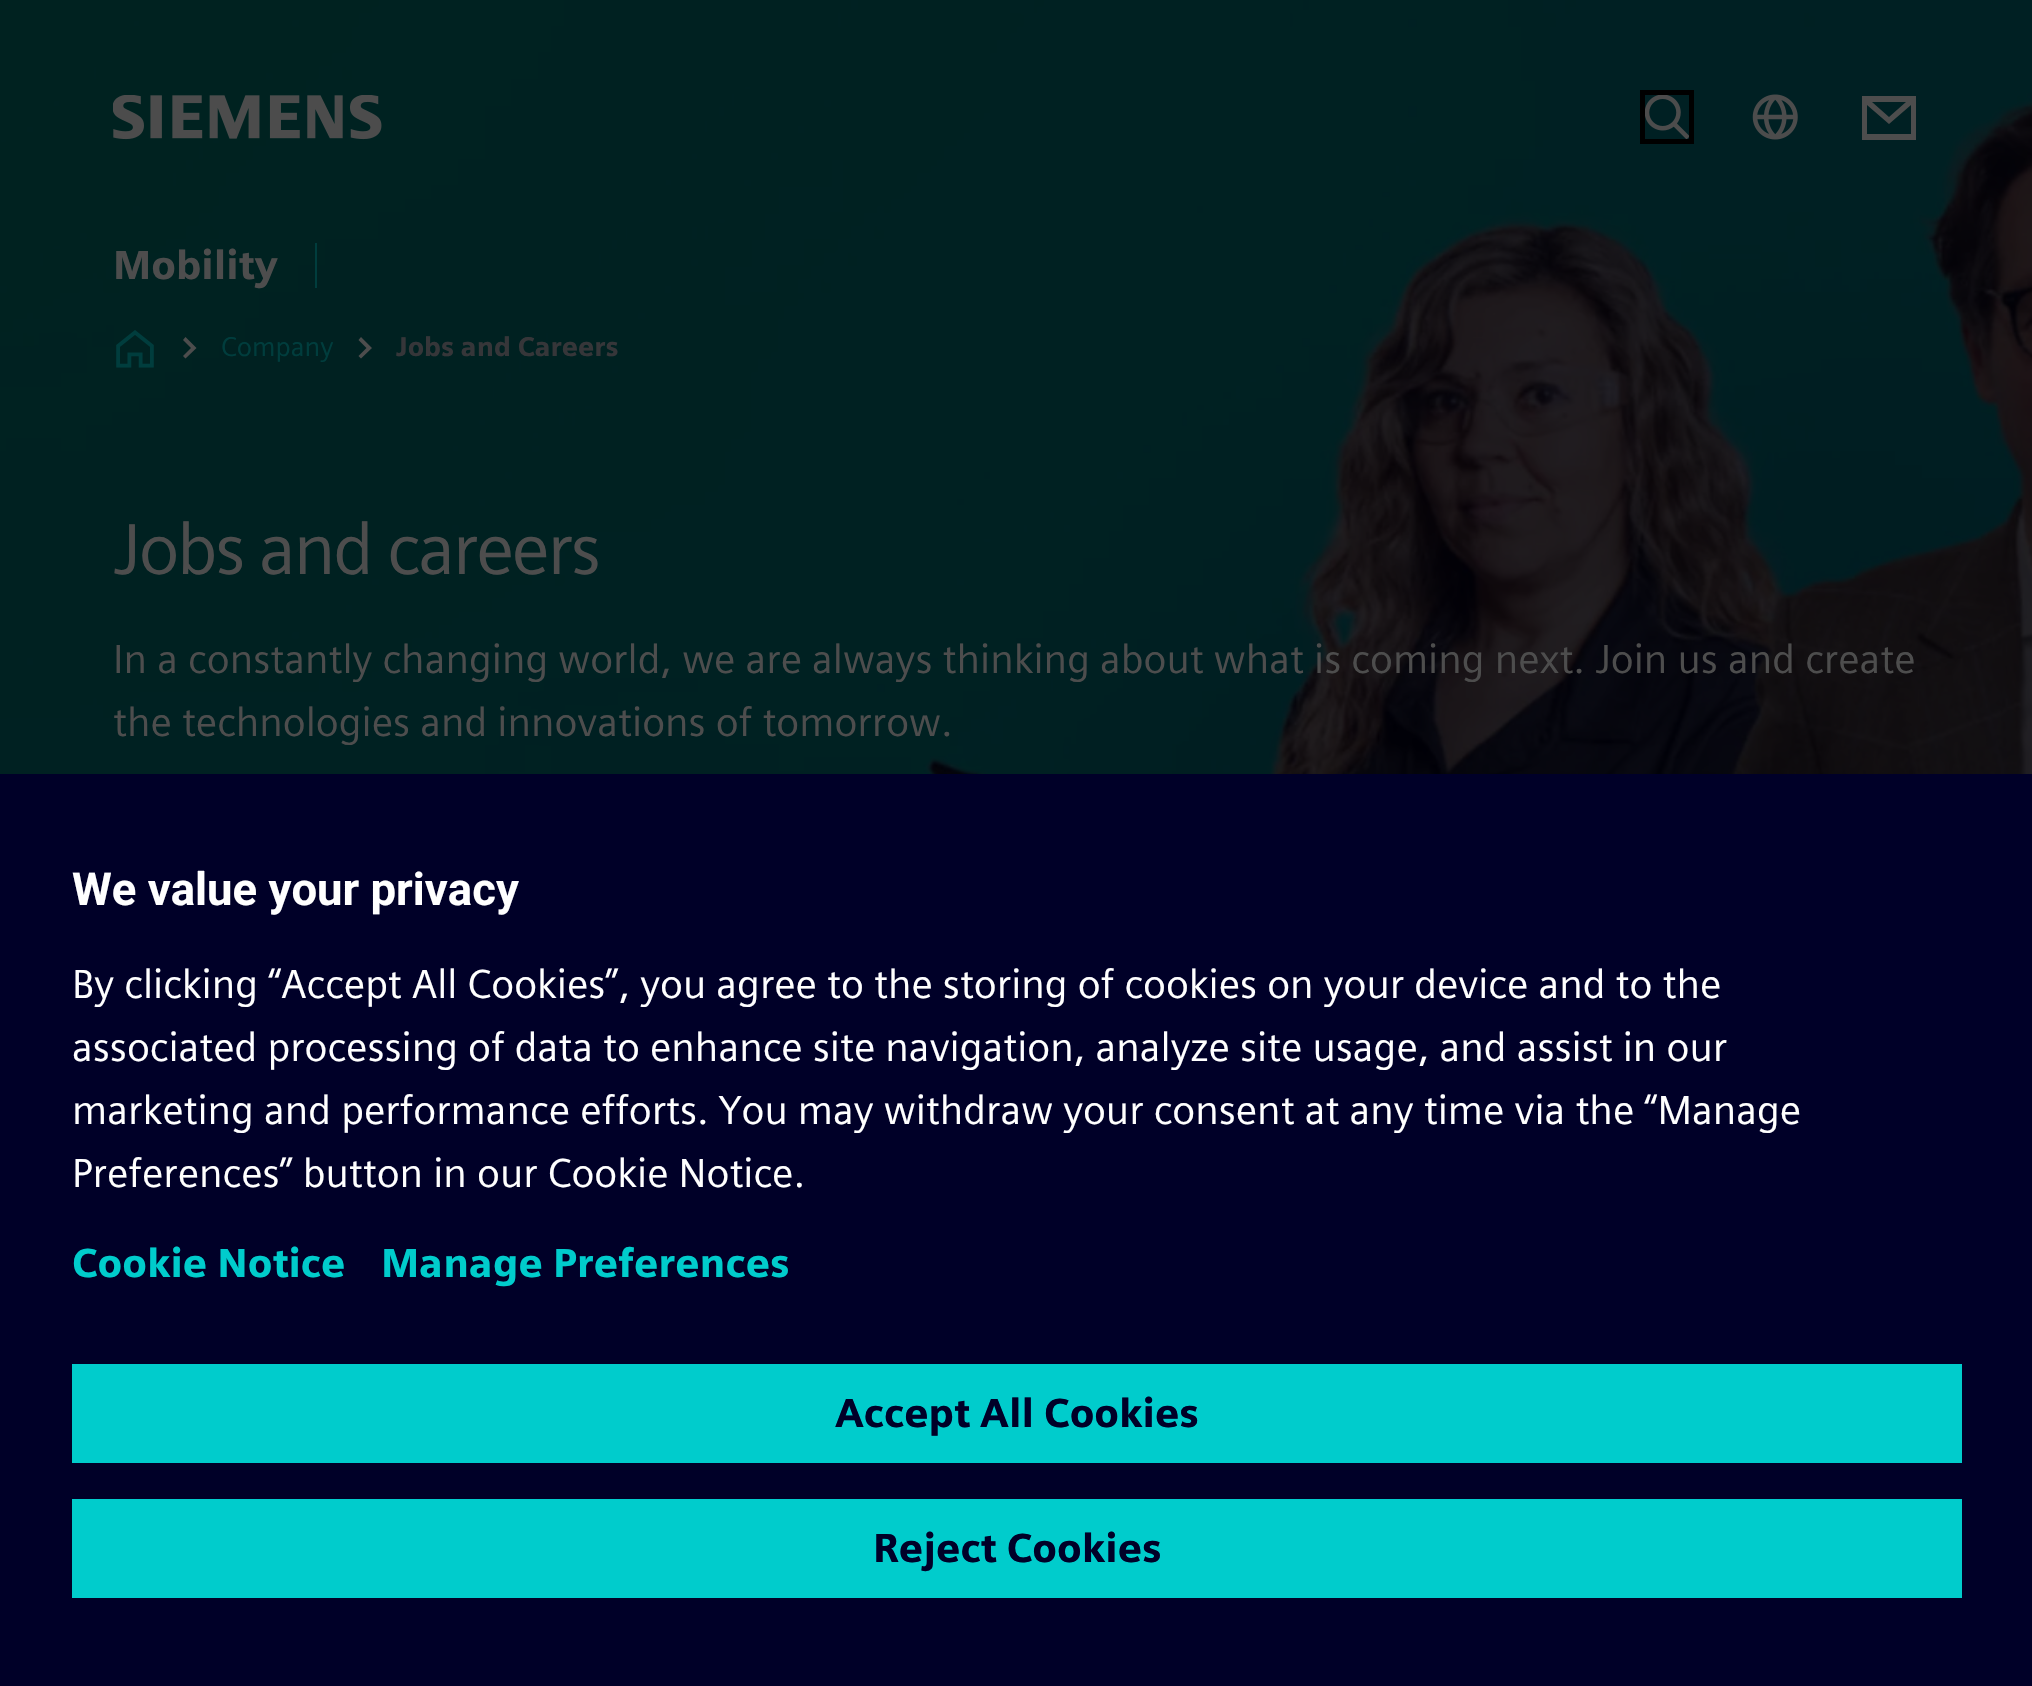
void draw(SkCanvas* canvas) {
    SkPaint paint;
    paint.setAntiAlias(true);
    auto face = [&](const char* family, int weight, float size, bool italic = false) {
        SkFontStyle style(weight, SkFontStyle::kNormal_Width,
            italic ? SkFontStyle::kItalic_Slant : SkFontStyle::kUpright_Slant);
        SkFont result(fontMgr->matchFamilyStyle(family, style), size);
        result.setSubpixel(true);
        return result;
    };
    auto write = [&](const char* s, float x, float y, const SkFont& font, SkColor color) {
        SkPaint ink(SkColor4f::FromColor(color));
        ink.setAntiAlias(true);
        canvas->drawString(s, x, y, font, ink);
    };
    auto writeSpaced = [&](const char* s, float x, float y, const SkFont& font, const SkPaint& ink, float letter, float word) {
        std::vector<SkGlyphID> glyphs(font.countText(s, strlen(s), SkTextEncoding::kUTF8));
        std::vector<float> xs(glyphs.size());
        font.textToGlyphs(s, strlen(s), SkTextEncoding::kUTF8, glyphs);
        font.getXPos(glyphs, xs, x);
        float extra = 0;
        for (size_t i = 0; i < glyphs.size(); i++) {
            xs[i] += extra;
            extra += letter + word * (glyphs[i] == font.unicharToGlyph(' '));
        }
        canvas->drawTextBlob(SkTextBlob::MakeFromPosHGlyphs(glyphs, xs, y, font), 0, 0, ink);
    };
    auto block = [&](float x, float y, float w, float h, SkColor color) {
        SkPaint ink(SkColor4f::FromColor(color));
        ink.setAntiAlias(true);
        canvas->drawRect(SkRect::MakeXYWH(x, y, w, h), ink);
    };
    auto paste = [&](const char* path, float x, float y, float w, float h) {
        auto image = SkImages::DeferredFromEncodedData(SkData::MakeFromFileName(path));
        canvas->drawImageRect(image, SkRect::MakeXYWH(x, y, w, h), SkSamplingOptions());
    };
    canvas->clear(SK_ColorWHITE);
    paste("pic5.png", 0, 0, 2032, 774);
    paste("pic1.png", 113, 95, 269, 45);
    paste("pic2.png", 1645, 95, 44, 44);
    paint.setStyle(SkPaint::kStroke_Style);
    paint.setStrokeWidth(5);
    paint.setColor(SK_ColorBLACK);
    canvas->drawRect(SkRect::MakeXYWH(1642.5f, 92.5f, 49, 49), paint);
    paste("pic3.png", 1752, 94, 46, 46);
    paint.setStyle(SkPaint::kFill_Style);
    paint.setColor(SkColorSetRGB(77, 77, 77));
    canvas->drawPath(SkPathBuilder(SkPathFillType::kEvenOdd).moveTo(1862, 96).lineTo(1862, 140).lineTo(1916, 140).lineTo(1916, 96).close().moveTo(1906, 102).lineTo(1889, 117).lineTo(1872, 102).close().moveTo(1867, 105).lineTo(1867, 134).lineTo(1911, 134).lineTo(1911, 105).lineTo(1889, 124).close().detach(), paint);
    auto kFont1 = face("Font", 700, 40.5f);
    write("Mobility", 113, 279, kFont1, SkColorSetRGB(77, 77, 77));
    block(315, 243, 2, 45, SkColorSetRGB(0, 61, 61));
    paste("pic4.png", 116, 330, 38, 38);
    canvas->drawPath(SkPathBuilder().moveTo(185.5f, 358.5f).lineTo(183, 356).lineTo(191, 348).lineTo(183, 340).lineTo(185.5f, 337).lineTo(196.5f, 348).close().detach(), paint);
    auto kFont2 = face("Font", 400, 27);
    write("Company", 221, 356, kFont2, SkColorSetRGB(0, 61, 61));
    canvas->drawPath(SkPathBuilder().moveTo(361, 358.5f).lineTo(358.5f, 356).lineTo(366.5f, 348).lineTo(358.5f, 340).lineTo(361, 337).lineTo(372, 348).close().detach(), paint);
    auto kFont3 = face("Font", 700, 27);
    write("Jobs and Careers", 396, 356, kFont3, SkColorSetRGB(54, 54, 57));
    auto kFont4 = face("Font", 400, 72);
    writeSpaced("Jobs and careers", 113, 574, kFont4, paint, -2.25f, 0);
    auto kFont5 = face("Font", 400, 40.5f);
    write("In a constantly changing world, we are always thinking about what is coming next. Join us and create", 113, 673, kFont5, SkColorSetRGB(77, 77, 77));
    write("the technologies and innovations of tomorrow.", 113, 736, kFont5, SkColorSetRGB(77, 77, 77));
    block(0, 774, 2032, 912, SkColorSetRGB(0, 0, 40));
    auto kFont6 = face("Roboto", 700, 45.5f);
    write("We value your privacy", 72, 905, kFont6, SK_ColorWHITE);
    write("By clicking “Accept All Cookies”, you agree to the storing of cookies on your device and to the", 72, 998, kFont5, SK_ColorWHITE);
    write("associated processing of data to enhance site navigation, analyze site usage, and assist in our", 72, 1061, kFont5, SK_ColorWHITE);
    write("marketing and performance efforts. You may withdraw your consent at any time via the “Manage", 72, 1124, kFont5, SK_ColorWHITE);
    write("Preferences” button in our Cookie Notice.", 72, 1187, kFont5, SK_ColorWHITE);
    write("Cookie Notice", 72, 1277, kFont1, SkColorSetRGB(0, 204, 204));
    write("Manage Preferences", 381, 1277, kFont1, SkColorSetRGB(0, 204, 204));
    block(72, 1364, 1890, 99, SkColorSetRGB(0, 204, 204));
    write("Accept All Cookies", 835, 1427, kFont1, SkColorSetRGB(0, 0, 40));
    block(72, 1499, 1890, 99, SkColorSetRGB(0, 204, 204));
    write("Reject Cookies", 873, 1562, kFont1, SkColorSetRGB(0, 0, 40));
}
